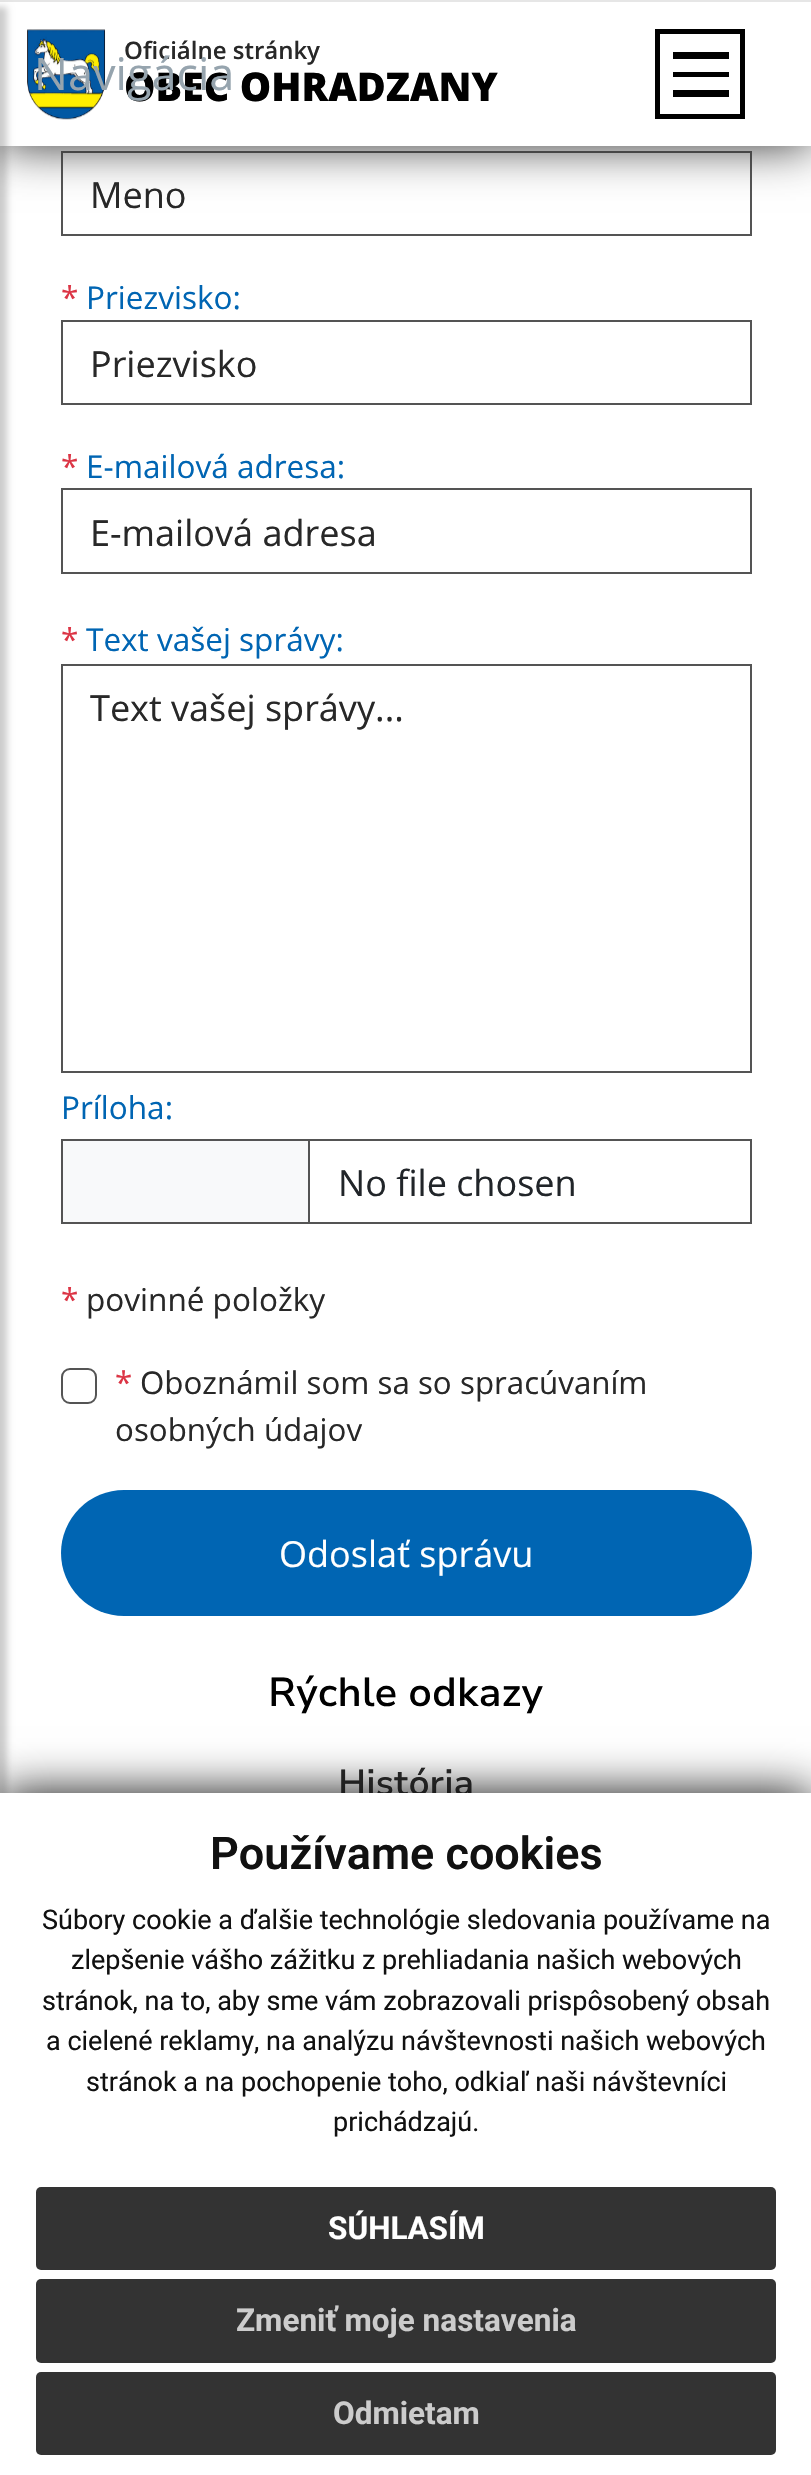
void draw(SkCanvas* canvas) {
    SkPaint paint;
    paint.setAntiAlias(true);
    auto face = [&](const char* family, int weight, float size, bool italic = false) {
        SkFontStyle style(weight, SkFontStyle::kNormal_Width,
            italic ? SkFontStyle::kItalic_Slant : SkFontStyle::kUpright_Slant);
        SkFont result(fontMgr->matchFamilyStyle(family, style), size);
        result.setSubpixel(true);
        return result;
    };
    auto write = [&](const char* s, float x, float y, const SkFont& font, SkColor color) {
        SkPaint ink(SkColor4f::FromColor(color));
        ink.setAntiAlias(true);
        canvas->drawString(s, x, y, font, ink);
    };
    auto block = [&](float x, float y, float w, float h, SkColor color) {
        SkPaint ink(SkColor4f::FromColor(color));
        ink.setAntiAlias(true);
        canvas->drawRect(SkRect::MakeXYWH(x, y, w, h), ink);
    };
    auto card = [&](float x, float y, float w, float h, float radius, SkColor color) {
        SkPaint ink(SkColor4f::FromColor(color));
        ink.setAntiAlias(true);
        canvas->drawRoundRect(SkRect::MakeXYWH(x, y, w, h), radius, radius, ink);
    };
    auto paste = [&](const char* path, float x, float y, float w, float h) {
        auto image = SkImages::DeferredFromEncodedData(SkData::MakeFromFileName(path));
        canvas->drawImageRect(image, SkRect::MakeXYWH(x, y, w, h), SkSamplingOptions());
    };
    canvas->clear(SK_ColorWHITE);
    paint.setStyle(SkPaint::kStroke_Style);
    paint.setStrokeWidth(2);
    paint.setColor(SkColorSetRGB(84, 84, 84));
    canvas->drawRect(SkRect::MakeXYWH(62, 152, 689, 83), paint);
    paint.setStyle(SkPaint::kFill_Style);
    paint.setColor(SkColorSetRGB(51, 51, 51));
    paint.setMaskFilter(SkMaskFilter::MakeBlur(kNormal_SkBlurStyle, 22.5f));
    canvas->drawRect(SkRect::MakeXYWH(0, 0, 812, 146), paint);
    paint.setMaskFilter(nullptr);
    block(0, 2, 811, 144, SK_ColorWHITE);
    block(0, 0, 811, 2, SkColorSetRGB(230, 230, 230));
    paint.setColor(SkColorSetARGB(51, 0, 0, 0));
    paint.setMaskFilter(SkMaskFilter::MakeBlur(kNormal_SkBlurStyle, 3.5f));
    canvas->drawRect(SkRect::MakeXYWH(-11, 7, 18, 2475), paint);
    paint.setMaskFilter(nullptr);
    paste("pic1.png", 27, 29, 79, 91);
    auto kFont1 = face("Open Sans", 600, 24);
    write("Oficiálne stránky", 124, 59, kFont1, SkColorSetRGB(40, 40, 40));
    auto kFont2 = face("Open Sans", 800, 39.5f);
    write("OBEC OHRADZANY", 124, 101, kFont2, SK_ColorBLACK);
    auto kFont3 = face("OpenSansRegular", 400, 45);
    write("Navigácia", 34, 90, kFont3, SkColorSetRGB(150, 164, 174));
    paint.setStyle(SkPaint::kStroke_Style);
    paint.setStrokeWidth(5);
    paint.setColor(SK_ColorBLACK);
    canvas->drawRect(SkRect::MakeXYWH(657.5f, 31.5f, 85, 85), paint);
    block(673, 52, 56, 7, SK_ColorBLACK);
    block(673, 72, 56, 5, SK_ColorBLACK);
    block(673, 90, 56, 7, SK_ColorBLACK);
    auto kFont4 = face("OpenSansRegular", 400, 36);
    write("Meno", 90, 208, kFont4, SkColorSetRGB(40, 40, 40));
    auto kFont5 = face("OpenSansRegular", 400, 31.5f);
    write("*", 61, 309, kFont5, SkColorSetRGB(220, 53, 69));
    write("Priezvisko:", 86, 309, kFont5, SkColorSetRGB(0, 101, 179));
    paint.setStrokeWidth(2);
    paint.setColor(SkColorSetRGB(84, 84, 84));
    canvas->drawRect(SkRect::MakeXYWH(62, 321, 689, 83), paint);
    write("Priezvisko", 90, 377, kFont4, SkColorSetRGB(40, 40, 40));
    write("*", 61, 478, kFont5, SkColorSetRGB(220, 53, 69));
    write("E-mailová adresa:", 86, 478, kFont5, SkColorSetRGB(0, 101, 179));
    canvas->drawRect(SkRect::MakeXYWH(62, 489, 689, 84), paint);
    write("E-mailová adresa", 90, 546, kFont4, SkColorSetRGB(40, 40, 40));
    write("*", 61, 651, kFont5, SkColorSetRGB(220, 53, 69));
    write("Text vašej správy:", 86, 651, kFont5, SkColorSetRGB(0, 101, 179));
    canvas->drawRect(SkRect::MakeXYWH(62, 665, 689, 407), paint);
    write("Text vašej správy...", 90, 721, kFont4, SkColorSetRGB(40, 40, 40));
    write("Príloha:", 61, 1119, kFont5, SkColorSetRGB(0, 101, 179));
    canvas->drawRect(SkRect::MakeXYWH(62, 1140, 689, 83), paint);
    block(63, 1141, 245, 81, SkColorSetRGB(248, 249, 250));
    block(308, 1141, 2, 81, SkColorSetRGB(84, 84, 84));
    write("No file chosen", 338, 1196, kFont4, SkColorSetRGB(33, 37, 41));
    write("*", 61, 1311, kFont5, SkColorSetRGB(220, 53, 69));
    write("povinné položky", 86, 1311, kFont5, SkColorSetRGB(40, 40, 40));
    canvas->drawRoundRect(SkRect::MakeXYWH(62, 1369, 34, 34), 8, 8, paint);
    auto kFont6 = face("OpenSansRegular", 400, 31.25f);
    write("*", 115, 1394, kFont6, SkColorSetRGB(220, 53, 69));
    write("Oboznámil som sa so", 140, 1394, kFont6, SkColorSetRGB(40, 40, 40));
    write("spracúvaním", 460, 1394, kFont6, SkColorSetRGB(40, 40, 40));
    write("osobných údajov", 115, 1441, kFont6, SkColorSetRGB(40, 40, 40));
    card(61, 1490, 691, 126, 63, SkColorSetRGB(0, 101, 179));
    write("Odoslať správu", 279, 1567, kFont4, SK_ColorWHITE);
    auto kFont7 = face("Nunito Sans", 600, 40.25f);
    write("Rýchle odkazy", 268, 1706, kFont7, SK_ColorBLACK);
    auto kFont8 = face("Nunito Sans", 600, 36);
    write("História", 338, 1795, kFont8, SkColorSetRGB(40, 40, 40));
    paint.setStyle(SkPaint::kFill_Style);
    paint.setColor(SkColorSetRGB(17, 17, 17));
    paint.setMaskFilter(SkMaskFilter::MakeBlur(kNormal_SkBlurStyle, 22.5f));
    canvas->drawRect(SkRect::MakeXYWH(0, 1793, 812, 682), paint);
    paint.setMaskFilter(nullptr);
    block(0, 1793, 811, 682, SK_ColorWHITE);
    auto kFont9 = face("Roboto", 600, 45);
    write("Používame cookies", 210, 1869, kFont9, SkColorSetRGB(17, 17, 17));
    auto kFont10 = face("Roboto", 400, 27);
    write("Súbory cookie a ďalšie technológie sledovania používame na", 42, 1929, kFont10, SkColorSetRGB(17, 17, 17));
    write("zlepšenie vášho zážitku z prehliadania našich webových", 71, 1969, kFont10, SkColorSetRGB(17, 17, 17));
    write("stránok, na to, aby sme vám zobrazovali prispôsobený obsah", 42, 2010, kFont10, SkColorSetRGB(17, 17, 17));
    write("a cielené reklamy, na analýzu návštevnosti našich webových", 46, 2050, kFont10, SkColorSetRGB(17, 17, 17));
    write("stránok a na pochopenie toho, odkiaľ naši návštevníci", 86, 2091, kFont10, SkColorSetRGB(17, 17, 17));
    write("prichádzajú.", 333, 2131, kFont10, SkColorSetRGB(17, 17, 17));
    card(36, 2187, 740, 83, 5, SkColorSetRGB(51, 51, 51));
    auto kFont11 = face("Roboto", 700, 31.5f);
    write("SÚHLASÍM", 328, 2239, kFont11, SK_ColorWHITE);
    card(36, 2279, 740, 84, 5, SkColorSetRGB(51, 51, 51));
    write("Zmeniť moje nastavenia", 236, 2331, kFont11, SkColorSetRGB(204, 204, 204));
    card(36, 2372, 740, 83, 5, SkColorSetRGB(51, 51, 51));
    write("Odmietam", 333, 2424, kFont11, SkColorSetRGB(204, 204, 204));
}
